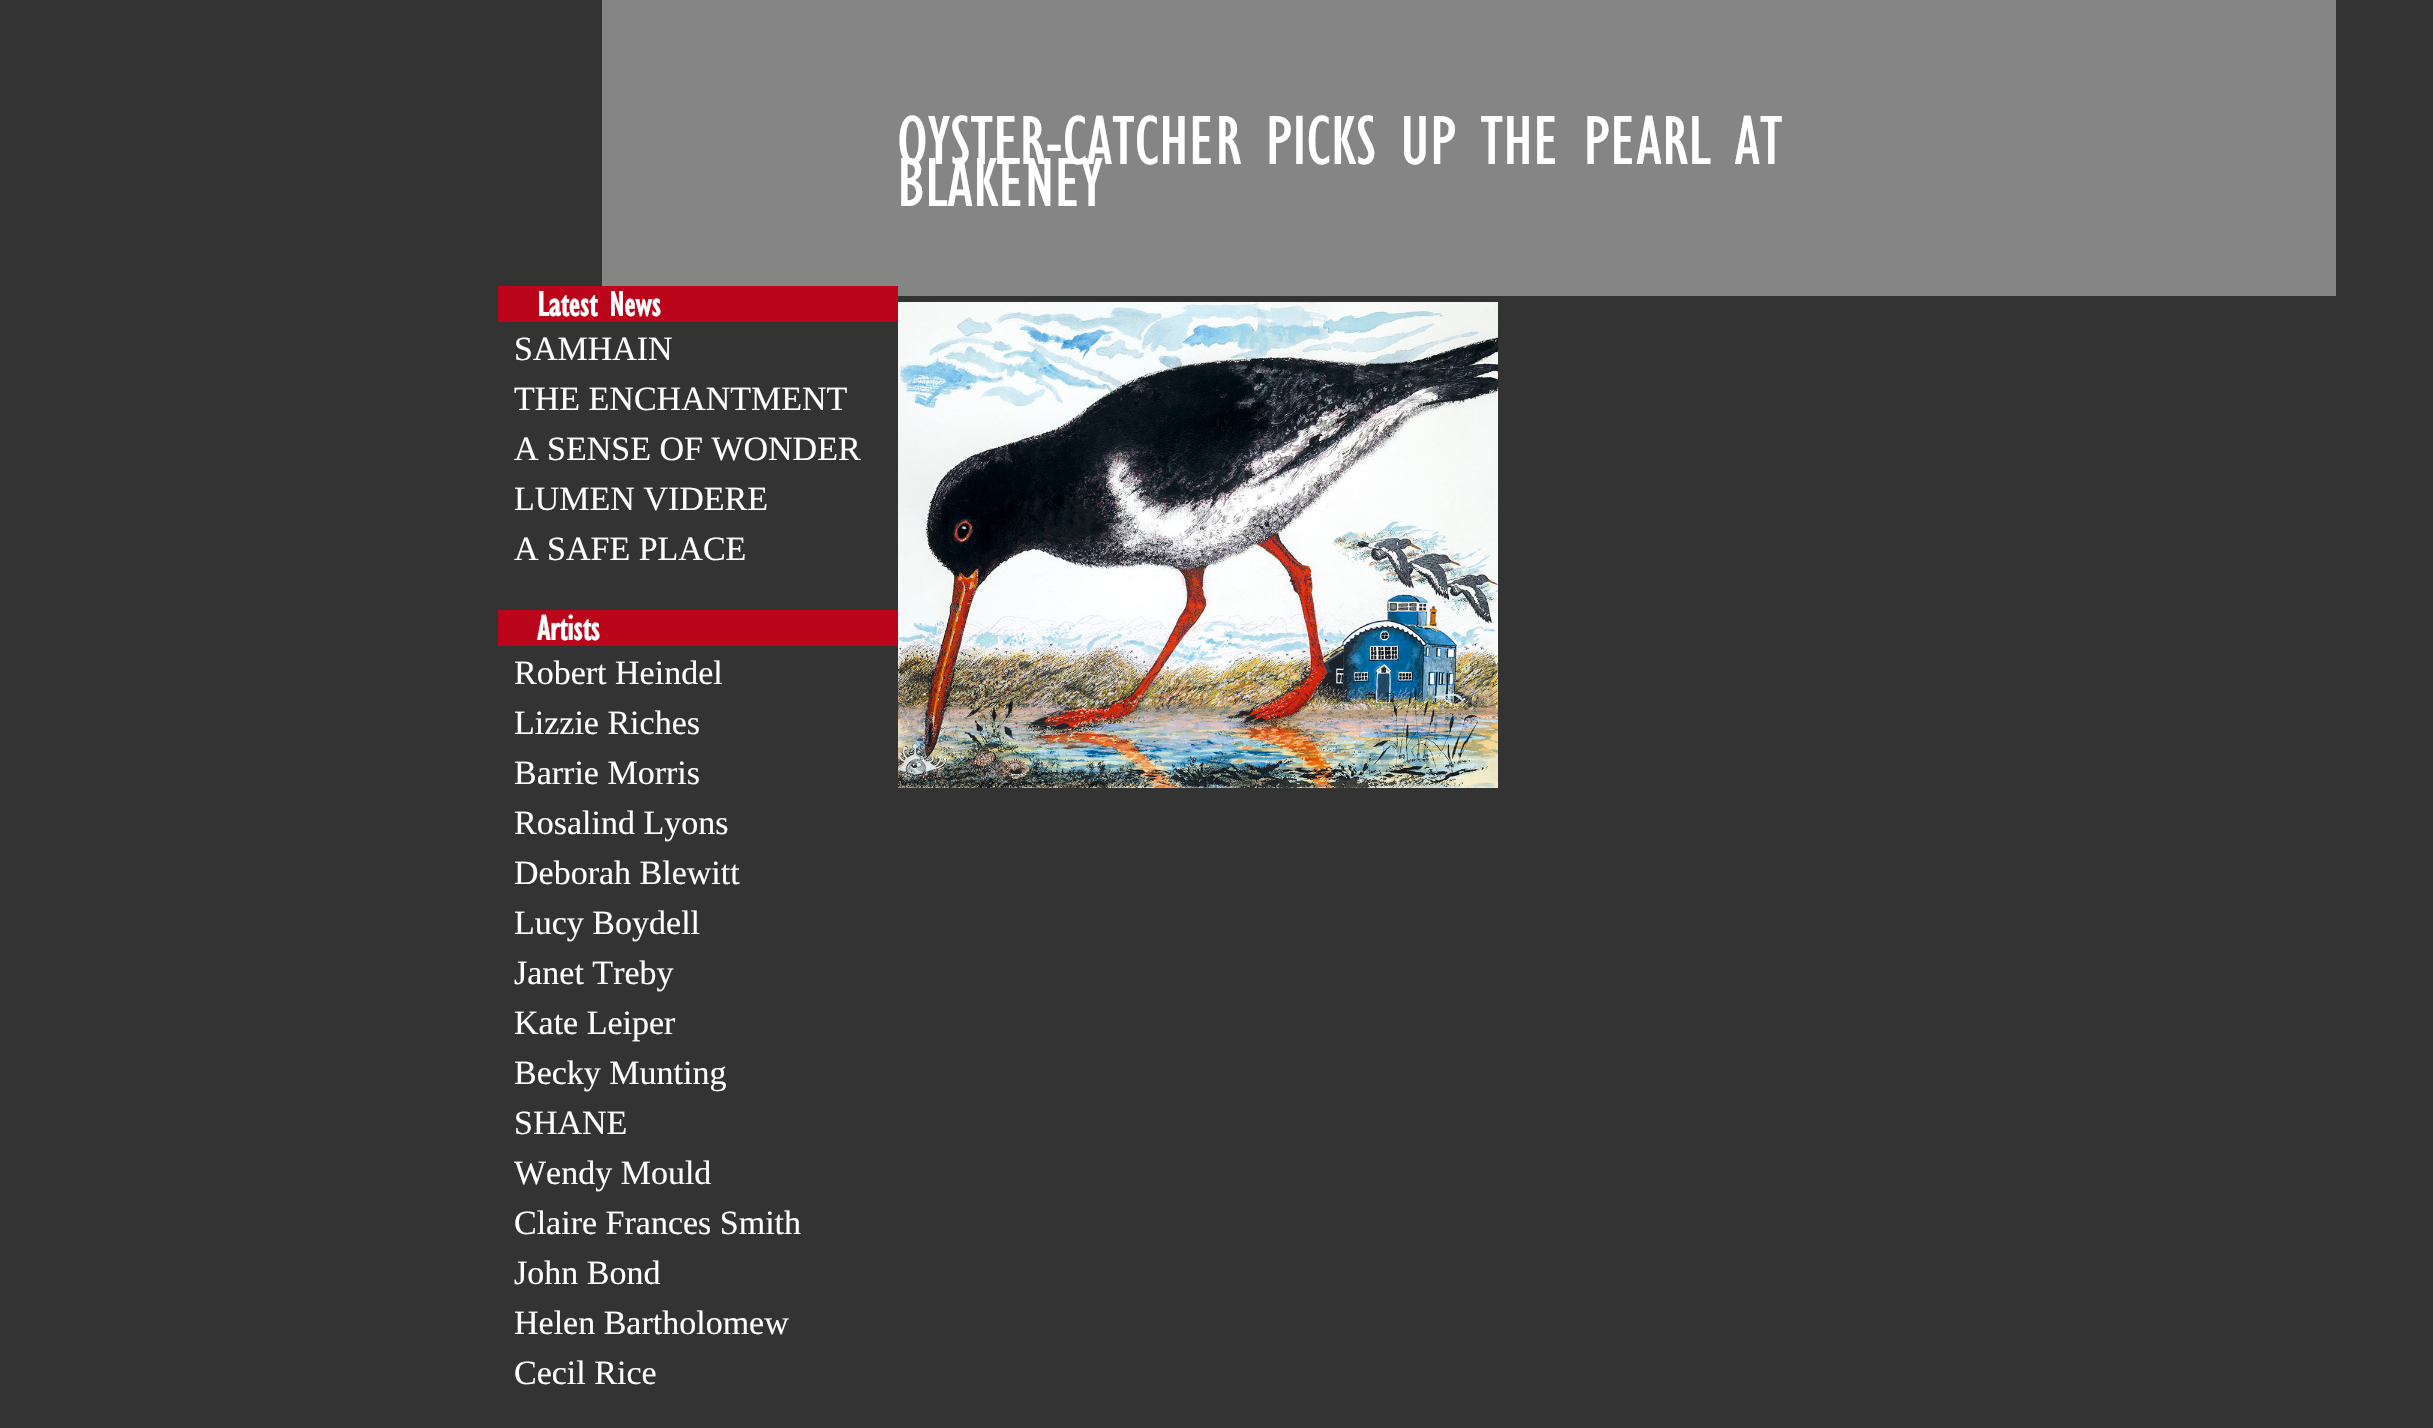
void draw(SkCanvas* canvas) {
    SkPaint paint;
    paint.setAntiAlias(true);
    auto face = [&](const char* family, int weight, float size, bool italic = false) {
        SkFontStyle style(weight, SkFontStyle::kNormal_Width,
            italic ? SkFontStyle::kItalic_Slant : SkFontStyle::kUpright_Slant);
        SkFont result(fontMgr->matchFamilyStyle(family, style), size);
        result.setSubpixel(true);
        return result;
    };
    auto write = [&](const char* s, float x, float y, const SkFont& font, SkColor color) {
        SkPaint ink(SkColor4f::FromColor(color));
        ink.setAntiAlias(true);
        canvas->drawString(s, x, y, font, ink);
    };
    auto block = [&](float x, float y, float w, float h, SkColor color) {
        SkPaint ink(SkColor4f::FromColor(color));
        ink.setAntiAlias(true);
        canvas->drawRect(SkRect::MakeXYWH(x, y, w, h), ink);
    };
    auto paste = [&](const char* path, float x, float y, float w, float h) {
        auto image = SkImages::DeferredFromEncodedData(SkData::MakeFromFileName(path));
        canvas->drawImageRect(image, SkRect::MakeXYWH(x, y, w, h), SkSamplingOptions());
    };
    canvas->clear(SkColorSetRGB(51, 51, 51));
    block(602, 0, 1734, 296, SkColorSetRGB(134, 133, 133));
    auto kFont1 = face("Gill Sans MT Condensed", 400, 72);
    write("OYSTER-CATCHER PICKS UP THE PEARL AT", 897, 164, kFont1, SK_ColorWHITE);
    write("BLAKENEY", 897, 206, kFont1, SK_ColorWHITE);
    paste("pic1.png", 898, 302, 600, 486);
    block(498, 286, 400, 36, SkColorSetRGB(187, 5, 26));
    auto kFont2 = face("Gill Sans MT Condensed", 700, 36);
    write("Latest News", 537, 316, kFont2, SK_ColorWHITE);
    auto kFont3 = face("Liberation Serif", 400, 34);
    write("SAMHAIN", 514, 360, kFont3, SK_ColorWHITE);
    write("THE ENCHANTMENT", 514, 410, kFont3, SK_ColorWHITE);
    write("A SENSE OF WONDER", 514, 460, kFont3, SK_ColorWHITE);
    write("LUMEN VIDERE", 514, 510, kFont3, SK_ColorWHITE);
    write("A SAFE PLACE", 514, 560, kFont3, SK_ColorWHITE);
    block(498, 610, 400, 36, SkColorSetRGB(187, 5, 26));
    write("Artists", 537, 640, kFont2, SK_ColorWHITE);
    write("Robert Heindel", 514, 684, kFont3, SK_ColorWHITE);
    write("Lizzie Riches", 514, 734, kFont3, SK_ColorWHITE);
    write("Barrie Morris", 514, 784, kFont3, SK_ColorWHITE);
    write("Rosalind Lyons", 514, 834, kFont3, SK_ColorWHITE);
    write("Deborah Blewitt", 514, 884, kFont3, SK_ColorWHITE);
    write("Lucy Boydell", 514, 934, kFont3, SK_ColorWHITE);
    write("Janet Treby", 514, 984, kFont3, SK_ColorWHITE);
    write("Kate Leiper", 514, 1034, kFont3, SK_ColorWHITE);
    write("Becky Munting", 514, 1084, kFont3, SK_ColorWHITE);
    write("SHANE", 514, 1134, kFont3, SK_ColorWHITE);
    write("Wendy Mould", 514, 1184, kFont3, SK_ColorWHITE);
    write("Claire Frances Smith", 514, 1234, kFont3, SK_ColorWHITE);
    write("John Bond", 514, 1284, kFont3, SK_ColorWHITE);
    write("Helen Bartholomew", 514, 1334, kFont3, SK_ColorWHITE);
    write("Cecil Rice", 514, 1384, kFont3, SK_ColorWHITE);
}
